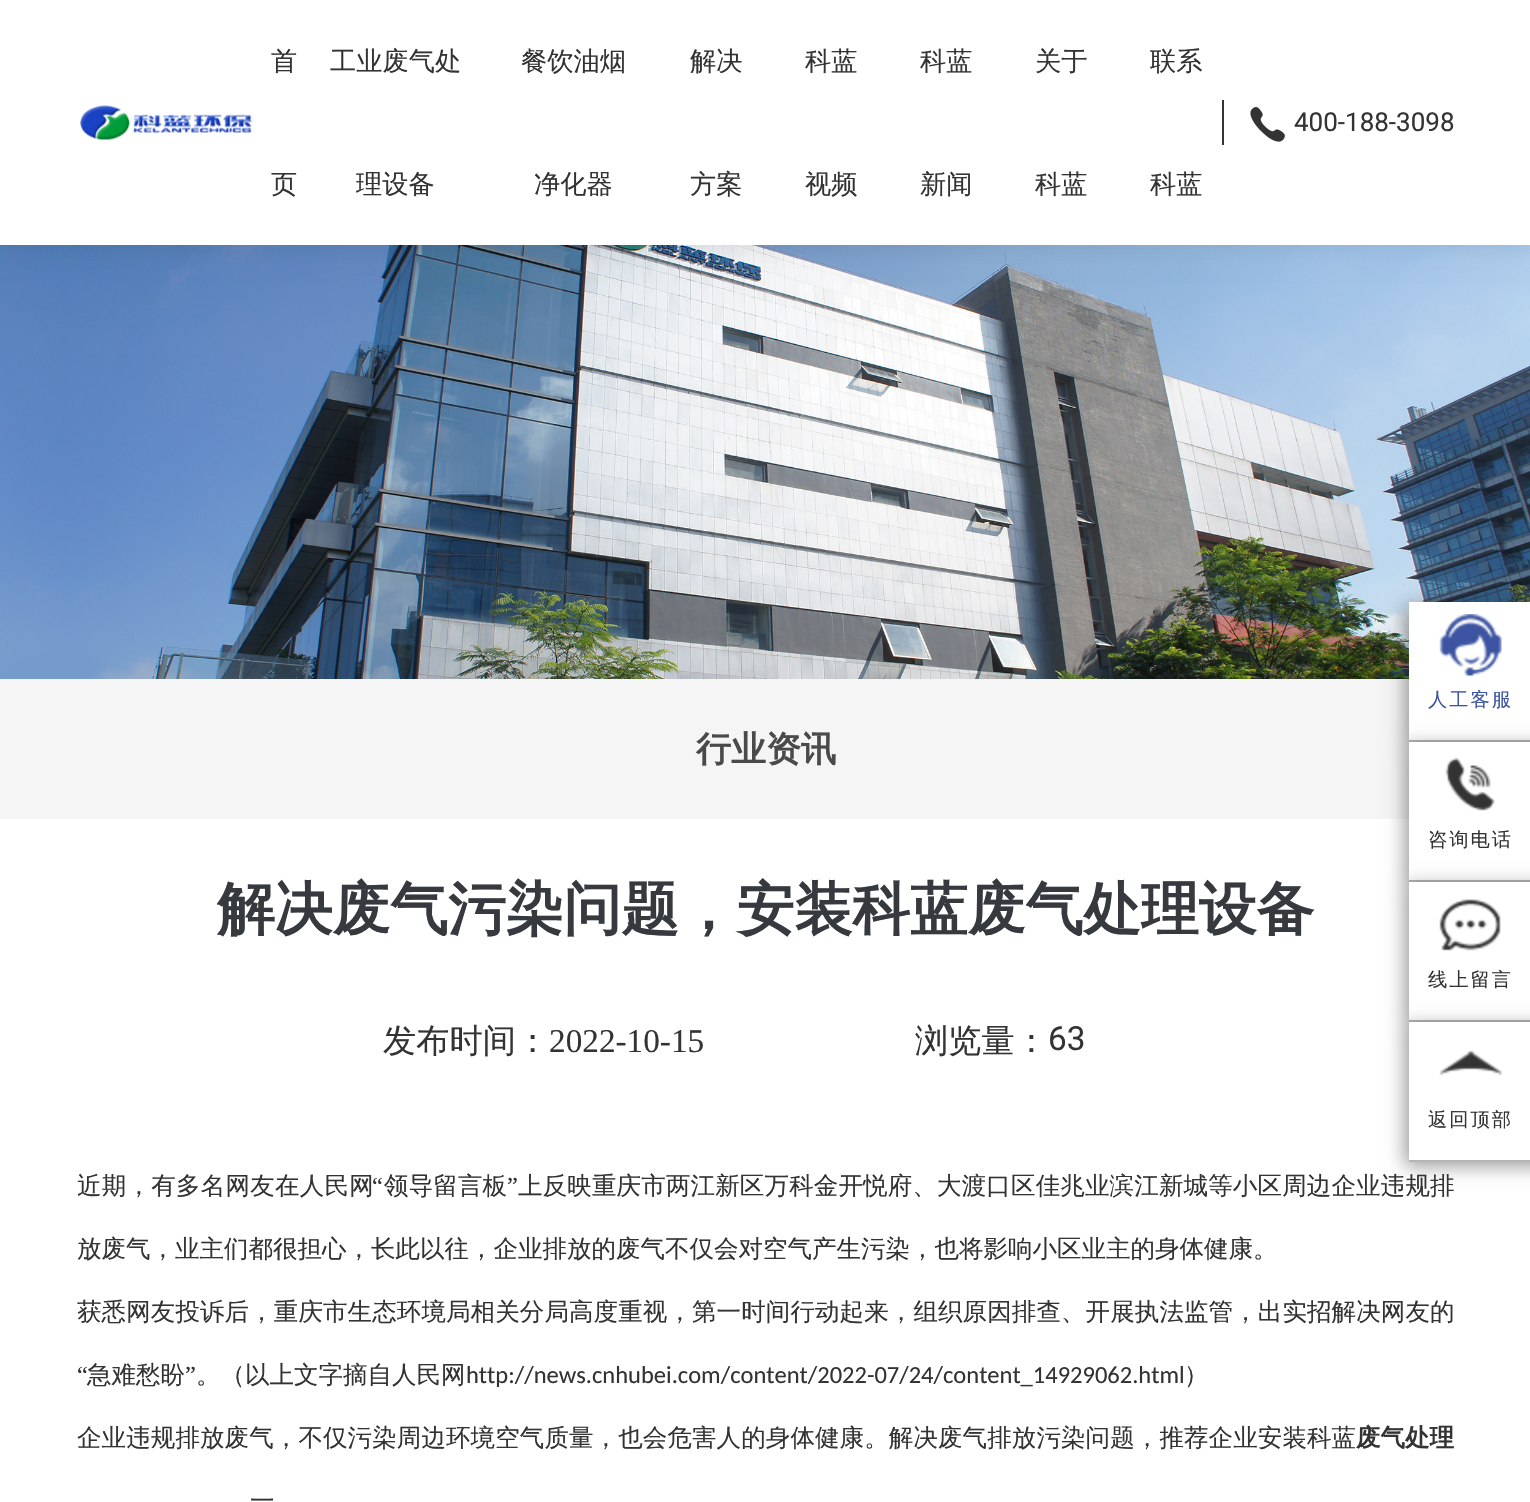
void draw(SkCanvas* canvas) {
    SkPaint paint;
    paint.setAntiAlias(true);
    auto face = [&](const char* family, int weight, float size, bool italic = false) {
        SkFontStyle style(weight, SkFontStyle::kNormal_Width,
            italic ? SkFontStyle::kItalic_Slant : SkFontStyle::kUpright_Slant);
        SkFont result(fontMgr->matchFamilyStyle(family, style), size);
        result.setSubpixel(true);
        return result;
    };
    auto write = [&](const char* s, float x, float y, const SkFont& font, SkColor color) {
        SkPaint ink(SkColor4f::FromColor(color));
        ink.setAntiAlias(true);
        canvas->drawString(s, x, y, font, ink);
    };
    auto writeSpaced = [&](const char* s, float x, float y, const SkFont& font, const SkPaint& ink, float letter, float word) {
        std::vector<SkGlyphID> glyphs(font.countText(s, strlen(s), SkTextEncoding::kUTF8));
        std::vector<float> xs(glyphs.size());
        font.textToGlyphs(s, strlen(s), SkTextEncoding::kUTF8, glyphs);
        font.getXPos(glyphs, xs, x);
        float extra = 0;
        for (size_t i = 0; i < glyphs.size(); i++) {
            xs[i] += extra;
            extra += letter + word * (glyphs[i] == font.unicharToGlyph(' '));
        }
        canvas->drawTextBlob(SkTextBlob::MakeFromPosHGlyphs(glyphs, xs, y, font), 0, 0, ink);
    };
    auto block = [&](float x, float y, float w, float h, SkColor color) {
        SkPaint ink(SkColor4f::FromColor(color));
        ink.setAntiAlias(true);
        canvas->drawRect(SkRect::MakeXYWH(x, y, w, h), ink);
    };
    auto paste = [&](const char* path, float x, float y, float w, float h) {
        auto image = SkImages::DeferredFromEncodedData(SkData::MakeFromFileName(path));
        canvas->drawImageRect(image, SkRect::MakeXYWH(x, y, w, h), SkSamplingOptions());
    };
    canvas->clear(SK_ColorWHITE);
    paste("pic7.png", 0, 245, 1530, 434);
    paint.setColor(SkColorSetARGB(26, 0, 0, 0));
    paint.setMaskFilter(SkMaskFilter::MakeBlur(kNormal_SkBlurStyle, 13));
    canvas->drawRect(SkRect::MakeXYWH(0, 0, 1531, 245), paint);
    paint.setMaskFilter(nullptr);
    block(0, 0, 1530, 245, SK_ColorWHITE);
    paste("pic1.png", 80, 105, 172, 35);
    auto kFont1 = face("WenQuanYi Zen Hei", 500, 26.25f);
    write("首", 271, 70, kFont1, SkColorSetRGB(51, 51, 51));
    write("页", 271, 193, kFont1, SkColorSetRGB(51, 51, 51));
    write("工业废气处", 330, 70, kFont1, SkColorSetRGB(51, 51, 51));
    write("理设备", 356, 193, kFont1, SkColorSetRGB(51, 51, 51));
    write("餐饮油烟", 521, 70, kFont1, SkColorSetRGB(51, 51, 51));
    write("净化器", 534, 193, kFont1, SkColorSetRGB(51, 51, 51));
    write("解决", 690, 70, kFont1, SkColorSetRGB(51, 51, 51));
    write("方案", 690, 193, kFont1, SkColorSetRGB(51, 51, 51));
    write("科蓝", 805, 70, kFont1, SkColorSetRGB(51, 51, 51));
    write("视频", 805, 193, kFont1, SkColorSetRGB(51, 51, 51));
    write("科蓝", 920, 70, kFont1, SkColorSetRGB(51, 51, 51));
    write("新闻", 920, 193, kFont1, SkColorSetRGB(51, 51, 51));
    write("关于", 1035, 70, kFont1, SkColorSetRGB(51, 51, 51));
    write("科蓝", 1035, 193, kFont1, SkColorSetRGB(51, 51, 51));
    write("联系", 1150, 70, kFont1, SkColorSetRGB(51, 51, 51));
    write("科蓝", 1150, 193, kFont1, SkColorSetRGB(51, 51, 51));
    block(1222, 100, 2, 45, SkColorSetRGB(51, 51, 51));
    paste("pic2.png", 1250, 107, 35, 35);
    auto kFont2 = face("Roboto", 400, 26);
    write("400-188-3098", 1294, 131, kFont2, SkColorSetRGB(51, 51, 51));
    block(0, 679, 1409, 140, SkColorSetRGB(245, 245, 245));
    paint.setColor(SkColorSetARGB(102, 0, 0, 0));
    paint.setMaskFilter(SkMaskFilter::MakeBlur(kNormal_SkBlurStyle, 9));
    canvas->drawRect(SkRect::MakeXYWH(1405, 606, 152, 140), paint);
    paint.setMaskFilter(nullptr);
    block(1409, 602, 121, 138, SK_ColorWHITE);
    block(1409, 740, 121, 2, SkColorSetRGB(181, 181, 181));
    paste("pic3.png", 1439, 614, 63, 63);
    auto kFont3 = face("WenQuanYi Zen Hei", 500, 19.25f);
    paint.setColor(SkColorSetRGB(61, 84, 162));
    writeSpaced("人工客服", 1428, 706, kFont3, paint, 2, 0);
    paint.setColor(SkColorSetARGB(102, 0, 0, 0));
    paint.setMaskFilter(SkMaskFilter::MakeBlur(kNormal_SkBlurStyle, 9));
    canvas->drawRect(SkRect::MakeXYWH(1405, 746, 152, 140), paint);
    paint.setMaskFilter(nullptr);
    block(1409, 742, 121, 138, SK_ColorWHITE);
    block(1409, 880, 121, 2, SkColorSetRGB(181, 181, 181));
    paste("pic4.png", 1445, 757, 50, 54);
    paint.setColor(SkColorSetRGB(51, 51, 51));
    writeSpaced("咨询电话", 1428, 846, kFont3, paint, 2, 0);
    paint.setColor(SkColorSetARGB(102, 0, 0, 0));
    paint.setMaskFilter(SkMaskFilter::MakeBlur(kNormal_SkBlurStyle, 9));
    canvas->drawRect(SkRect::MakeXYWH(1405, 886, 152, 140), paint);
    paint.setMaskFilter(nullptr);
    block(1409, 882, 121, 138, SK_ColorWHITE);
    block(1409, 1020, 121, 2, SkColorSetRGB(181, 181, 181));
    paste("pic5.png", 1439, 899, 62, 52);
    paint.setColor(SkColorSetRGB(51, 51, 51));
    writeSpaced("线上留言", 1428, 986, kFont3, paint, 2, 0);
    paint.setColor(SkColorSetARGB(102, 0, 0, 0));
    paint.setMaskFilter(SkMaskFilter::MakeBlur(kNormal_SkBlurStyle, 9));
    canvas->drawRect(SkRect::MakeXYWH(1405, 1026, 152, 140), paint);
    paint.setMaskFilter(nullptr);
    block(1409, 1022, 121, 138, SK_ColorWHITE);
    block(1409, 1160, 121, 2, SkColorSetRGB(181, 181, 181));
    paste("pic6.png", 1439, 1050, 63, 26);
    paint.setColor(SkColorSetRGB(51, 51, 51));
    writeSpaced("返回顶部", 1428, 1126, kFont3, paint, 2, 0);
    auto kFont4 = face("WenQuanYi Zen Hei", 700, 35);
    write("行业资讯", 696, 761, kFont4, SkColorSetRGB(74, 74, 74));
    auto kFont5 = face("WenQuanYi Zen Hei", 700, 57.75f);
    write("解决废气污染问题，安装科蓝废气处理设备", 217, 929, kFont5, SkColorSetRGB(54, 58, 63));
    auto kFont6 = face("WenQuanYi Zen Hei", 500, 33.25f);
    write("发布时间：", 383, 1052, kFont6, SkColorSetRGB(51, 51, 51));
    auto kFont7 = face("Liberation Serif", 400, 33.25f);
    write("2022-10-15", 549, 1052, kFont7, SkColorSetRGB(51, 51, 51));
    write("浏览量：", 915, 1052, kFont6, SkColorSetRGB(51, 51, 51));
    auto kFont8 = face("Roboto", 400, 33.25f);
    write("63", 1048, 1050, kFont8, SkColorSetRGB(51, 51, 51));
    auto kFont9 = face("WenQuanYi Zen Hei", 500, 24.5f);
    writeSpaced("近期，有多名网友在人民网", 77, 1194, kFont9, paint, 0.25f, 0);
    auto kFont10 = face("Liberation Serif", 400, 24.5f);
    writeSpaced("“", 372, 1194, kFont10, paint, 0.15f, 0);
    writeSpaced("领导留言板", 384, 1194, kFont9, paint, 0.15f, 0);
    writeSpaced("”", 507, 1194, kFont10, paint, 0.15f, 0);
    writeSpaced("上反映重庆市两江新区万科金开悦府、大渡口区佳兆业滨江新城等小区周边企业违规排", 518, 1194, kFont9, paint, 0.15f, 0);
    write("放废气，业主们都很担心，长此以往，企业排放的废气不仅会对空气产生污染，也将影响小区业主的身体健康。", 77, 1257, kFont9, SkColorSetRGB(51, 51, 51));
    writeSpaced("获悉网友投诉后，重庆市生态环境局相关分局高度重视，第一时间行动起来，组织原因排查、开展执法监管，出实招解决网友的", 77, 1320, kFont9, paint, 0.1f, 0);
    write("“", 77, 1383, kFont10, SkColorSetRGB(51, 51, 51));
    write("急难愁盼", 87, 1383, kFont9, SkColorSetRGB(51, 51, 51));
    write("”", 185, 1383, kFont10, SkColorSetRGB(51, 51, 51));
    write("。（以上文字摘自人民网", 196, 1383, kFont9, SkColorSetRGB(51, 51, 51));
    auto kFont11 = face("Carlito", 400, 24.5f);
    write("http://news.cnhubei.com/content/2022-07/24/content_14929062.html", 466, 1383, kFont11, SkColorSetRGB(51, 51, 51));
    write("）", 1184, 1383, kFont9, SkColorSetRGB(51, 51, 51));
    writeSpaced("企业违规排放废气，不仅污染周边环境空气质量，也会危害人的身体健康。解决废气排放污染问题，推荐企业安装", 77, 1446, kFont9, paint, 0.1f, 0);
    write("科蓝", 1307, 1446, kFont9, SkColorSetRGB(51, 51, 51));
    auto kFont12 = face("WenQuanYi Zen Hei", 700, 24.5f);
    write("废气处理", 1356, 1446, kFont12, SkColorSetRGB(51, 51, 51));
    write("一", 250, 1509, kFont9, SkColorSetRGB(51, 51, 51));
}
